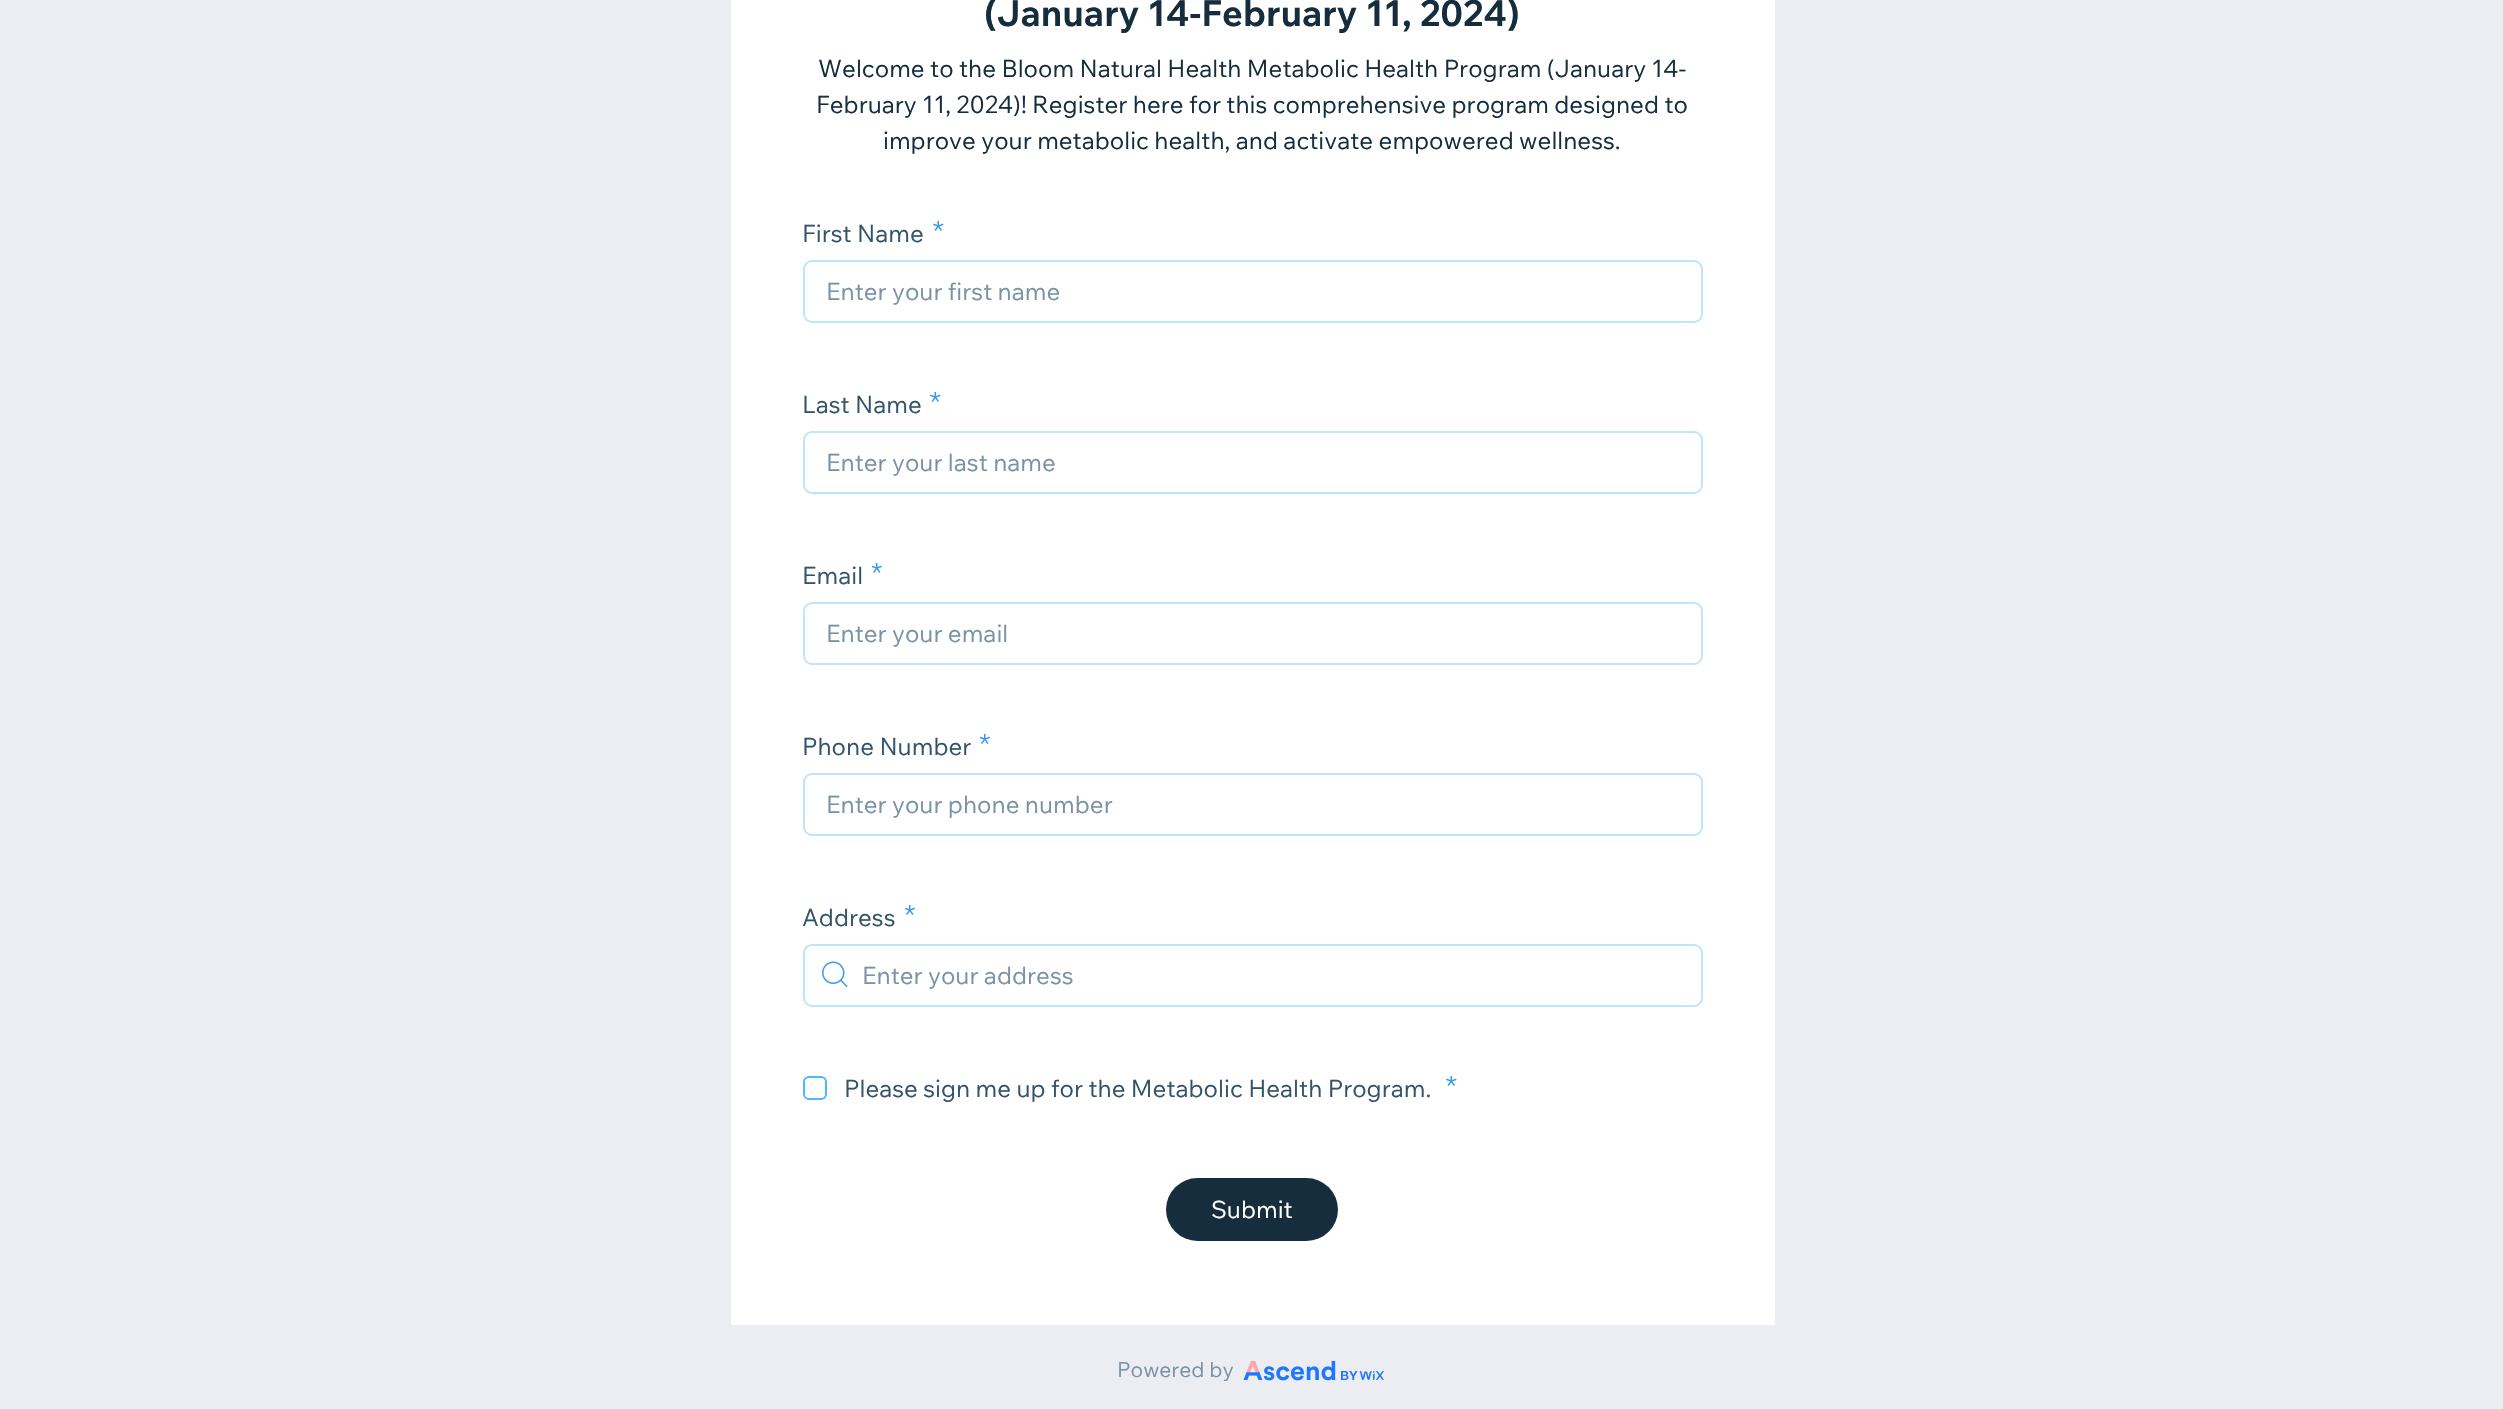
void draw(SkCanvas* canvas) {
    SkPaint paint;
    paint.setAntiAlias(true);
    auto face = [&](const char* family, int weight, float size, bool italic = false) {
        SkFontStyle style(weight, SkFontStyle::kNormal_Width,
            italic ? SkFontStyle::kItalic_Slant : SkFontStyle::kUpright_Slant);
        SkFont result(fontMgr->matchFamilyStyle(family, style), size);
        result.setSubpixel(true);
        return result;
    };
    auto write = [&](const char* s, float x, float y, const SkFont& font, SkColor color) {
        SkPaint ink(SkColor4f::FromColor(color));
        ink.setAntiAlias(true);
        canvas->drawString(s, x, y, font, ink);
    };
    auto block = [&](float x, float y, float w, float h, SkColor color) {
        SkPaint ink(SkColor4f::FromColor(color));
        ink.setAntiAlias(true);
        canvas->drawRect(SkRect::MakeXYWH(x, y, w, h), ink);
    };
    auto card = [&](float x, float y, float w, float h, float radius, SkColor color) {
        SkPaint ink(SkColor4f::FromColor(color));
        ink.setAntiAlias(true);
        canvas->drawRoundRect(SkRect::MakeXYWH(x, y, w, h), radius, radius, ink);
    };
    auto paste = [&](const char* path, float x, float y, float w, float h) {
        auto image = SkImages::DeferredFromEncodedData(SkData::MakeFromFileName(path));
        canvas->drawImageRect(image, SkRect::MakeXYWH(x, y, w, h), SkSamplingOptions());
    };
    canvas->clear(SkColorSetRGB(236, 237, 242));
    block(731, 0, 1044, 1325, SK_ColorWHITE);
    auto kFont1 = face("Wix Madefor Text", 700, 36);
    write("(January 14-February 11, 2024)", 984, 26, kFont1, SkColorSetRGB(22, 45, 61));
    auto kFont2 = face("Wix Madefor Text", 400, 24);
    write("Welcome to the Bloom Natural Health Metabolic Health Program (January 14-", 818, 77, kFont2, SkColorSetRGB(22, 45, 61));
    write("February 11, 2024)! Register here for this comprehensive program designed to", 816, 113, kFont2, SkColorSetRGB(22, 45, 61));
    write("improve your metabolic health, and activate empowered wellness.", 883, 149, kFont2, SkColorSetRGB(22, 45, 61));
    write("First Name", 802, 242, kFont2, SkColorSetRGB(50, 83, 106));
    paste("pic1.png", 933, 221, 11, 10);
    paint.setStyle(SkPaint::kStroke_Style);
    paint.setStrokeWidth(2);
    paint.setColor(SkColorSetRGB(193, 228, 254));
    canvas->drawRoundRect(SkRect::MakeXYWH(804, 261, 898, 61), 8, 8, paint);
    write("Enter your first name", 826, 300, kFont2, SkColorSetRGB(122, 146, 165));
    write("Last Name", 802, 413, kFont2, SkColorSetRGB(50, 83, 106));
    paste("pic1.png", 930, 392, 11, 10);
    canvas->drawRoundRect(SkRect::MakeXYWH(804, 432, 898, 61), 8, 8, paint);
    write("Enter your last name", 826, 471, kFont2, SkColorSetRGB(122, 146, 165));
    write("Email", 802, 584, kFont2, SkColorSetRGB(50, 83, 106));
    paste("pic2.png", 872, 563, 10, 10);
    canvas->drawRoundRect(SkRect::MakeXYWH(804, 603, 898, 61), 8, 8, paint);
    write("Enter your email", 826, 642, kFont2, SkColorSetRGB(122, 146, 165));
    write("Phone Number", 802, 755, kFont2, SkColorSetRGB(50, 83, 106));
    paste("pic2.png", 980, 734, 10, 10);
    canvas->drawRoundRect(SkRect::MakeXYWH(804, 774, 898, 61), 8, 8, paint);
    write("Enter your phone number", 826, 813, kFont2, SkColorSetRGB(122, 146, 165));
    write("Address", 802, 926, kFont2, SkColorSetRGB(50, 83, 106));
    paste("pic2.png", 905, 905, 10, 10);
    canvas->drawRoundRect(SkRect::MakeXYWH(804, 945, 898, 61), 8, 8, paint);
    paste("pic3.png", 822, 961, 26, 26);
    write("Enter your address", 862, 984, kFont2, SkColorSetRGB(122, 146, 165));
    paint.setColor(SkColorSetRGB(78, 183, 245));
    canvas->drawRoundRect(SkRect::MakeXYWH(804, 1077, 22, 22), 5, 5, paint);
    write("Please sign me up for the Metabolic Health Program.", 844, 1097, kFont2, SkColorSetRGB(50, 83, 106));
    paste("pic1.png", 1446, 1076, 11, 10);
    card(1166, 1178, 172, 63, 31.5f, SkColorSetRGB(22, 45, 61));
    write("Submit", 1211, 1218, kFont2, SK_ColorWHITE);
    auto kFont3 = face("Wix Madefor Text", 400, 21);
    write("Powered by", 1117, 1377, kFont3, SkColorSetRGB(122, 146, 165));
    paste("pic4.png", 1243, 1360, 141, 21);
}
